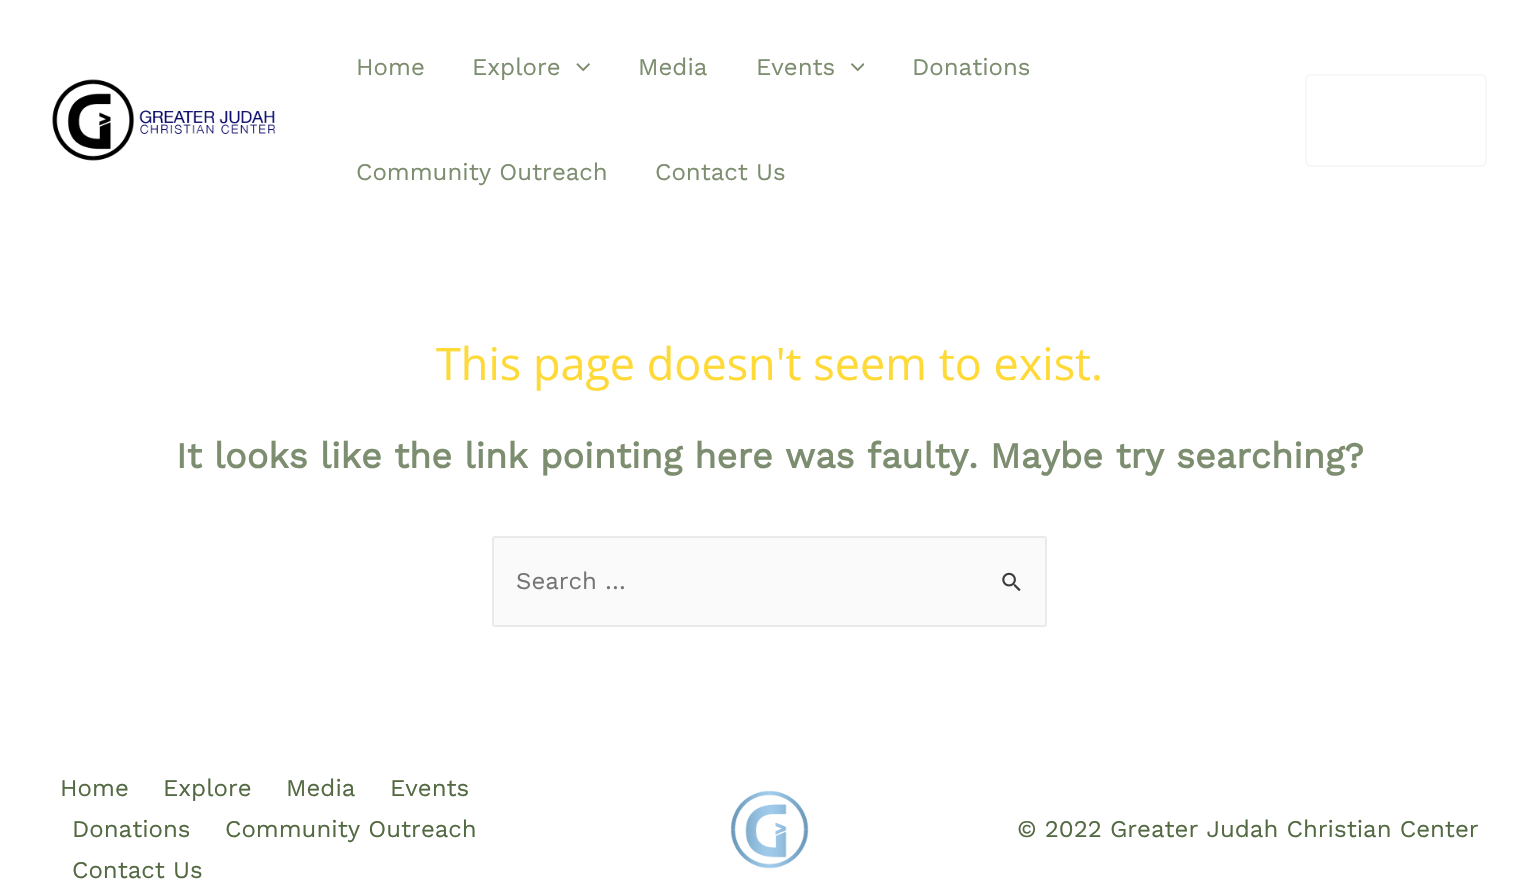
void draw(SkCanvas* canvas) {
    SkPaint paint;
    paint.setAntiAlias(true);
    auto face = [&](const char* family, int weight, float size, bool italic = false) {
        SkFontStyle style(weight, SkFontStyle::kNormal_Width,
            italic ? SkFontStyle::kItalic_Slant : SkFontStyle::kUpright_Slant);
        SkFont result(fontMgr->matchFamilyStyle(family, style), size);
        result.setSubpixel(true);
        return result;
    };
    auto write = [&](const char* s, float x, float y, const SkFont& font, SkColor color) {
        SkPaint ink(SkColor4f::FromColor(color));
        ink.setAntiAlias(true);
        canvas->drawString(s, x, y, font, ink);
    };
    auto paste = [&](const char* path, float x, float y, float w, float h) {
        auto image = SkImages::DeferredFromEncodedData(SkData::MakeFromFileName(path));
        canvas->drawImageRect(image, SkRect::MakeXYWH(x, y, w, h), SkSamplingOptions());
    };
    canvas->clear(SK_ColorWHITE);
    paste("pic1.png", 52, 79, 224, 82);
    auto kFont1 = face("Work Sans", 400, 24);
    write("Home", 356, 75, kFont1, SkColorSetRGB(125, 142, 112));
    write("Explore", 472, 75, kFont1, SkColorSetRGB(125, 142, 112));
    paste("pic2.png", 576, 63, 14, 9);
    write("Media", 638, 75, kFont1, SkColorSetRGB(125, 142, 112));
    write("Events", 756, 75, kFont1, SkColorSetRGB(125, 142, 112));
    paste("pic3.png", 851, 63, 13, 9);
    write("Donations", 912, 75, kFont1, SkColorSetRGB(125, 142, 112));
    write("Community Outreach", 356, 180, kFont1, SkColorSetRGB(125, 142, 112));
    write("Contact Us", 655, 180, kFont1, SkColorSetRGB(125, 142, 112));
    paint.setStyle(SkPaint::kStroke_Style);
    paint.setStrokeWidth(2);
    paint.setColor(SkColorSetRGB(246, 248, 245));
    canvas->drawRoundRect(SkRect::MakeXYWH(1306, 75, 180, 91), 5, 5, paint);
    auto kFont2 = face("Open Sans", 400, 45);
    write("This page doesn't seem to exist.", 436, 380, kFont2, SkColorSetRGB(255, 217, 54));
    auto kFont3 = face("Work Sans", 700, 36);
    write("It looks like the link pointing here was faulty. Maybe try searching?", 176, 468, kFont3, SkColorSetRGB(125, 142, 112));
    paint.setStyle(SkPaint::kFill_Style);
    paint.setColor(SkColorSetRGB(250, 250, 250));
    canvas->drawRoundRect(SkRect::MakeXYWH(493, 537, 553, 89), 2, 2, paint);
    paint.setStyle(SkPaint::kStroke_Style);
    paint.setColor(SkColorSetRGB(234, 234, 234));
    canvas->drawRoundRect(SkRect::MakeXYWH(493, 537, 553, 89), 2, 2, paint);
    write("Search …", 516, 589, kFont1, SkColorSetRGB(117, 117, 117));
    paste("pic4.png", 1002, 572, 19, 20);
    write("Home", 60, 796, kFont1, SkColorSetRGB(83, 105, 66));
    write("Explore", 163, 796, kFont1, SkColorSetRGB(83, 105, 66));
    write("Media", 286, 796, kFont1, SkColorSetRGB(83, 105, 66));
    write("Events", 390, 796, kFont1, SkColorSetRGB(83, 105, 66));
    write("Donations", 72, 837, kFont1, SkColorSetRGB(83, 105, 66));
    write("Community Outreach", 225, 837, kFont1, SkColorSetRGB(83, 105, 66));
    write("Contact Us", 72, 878, kFont1, SkColorSetRGB(83, 105, 66));
    paste("pic5.png", 730, 790, 79, 79);
    write("© 2022 Greater Judah Christian Center", 1017, 837, kFont1, SkColorSetRGB(83, 105, 66));
}
